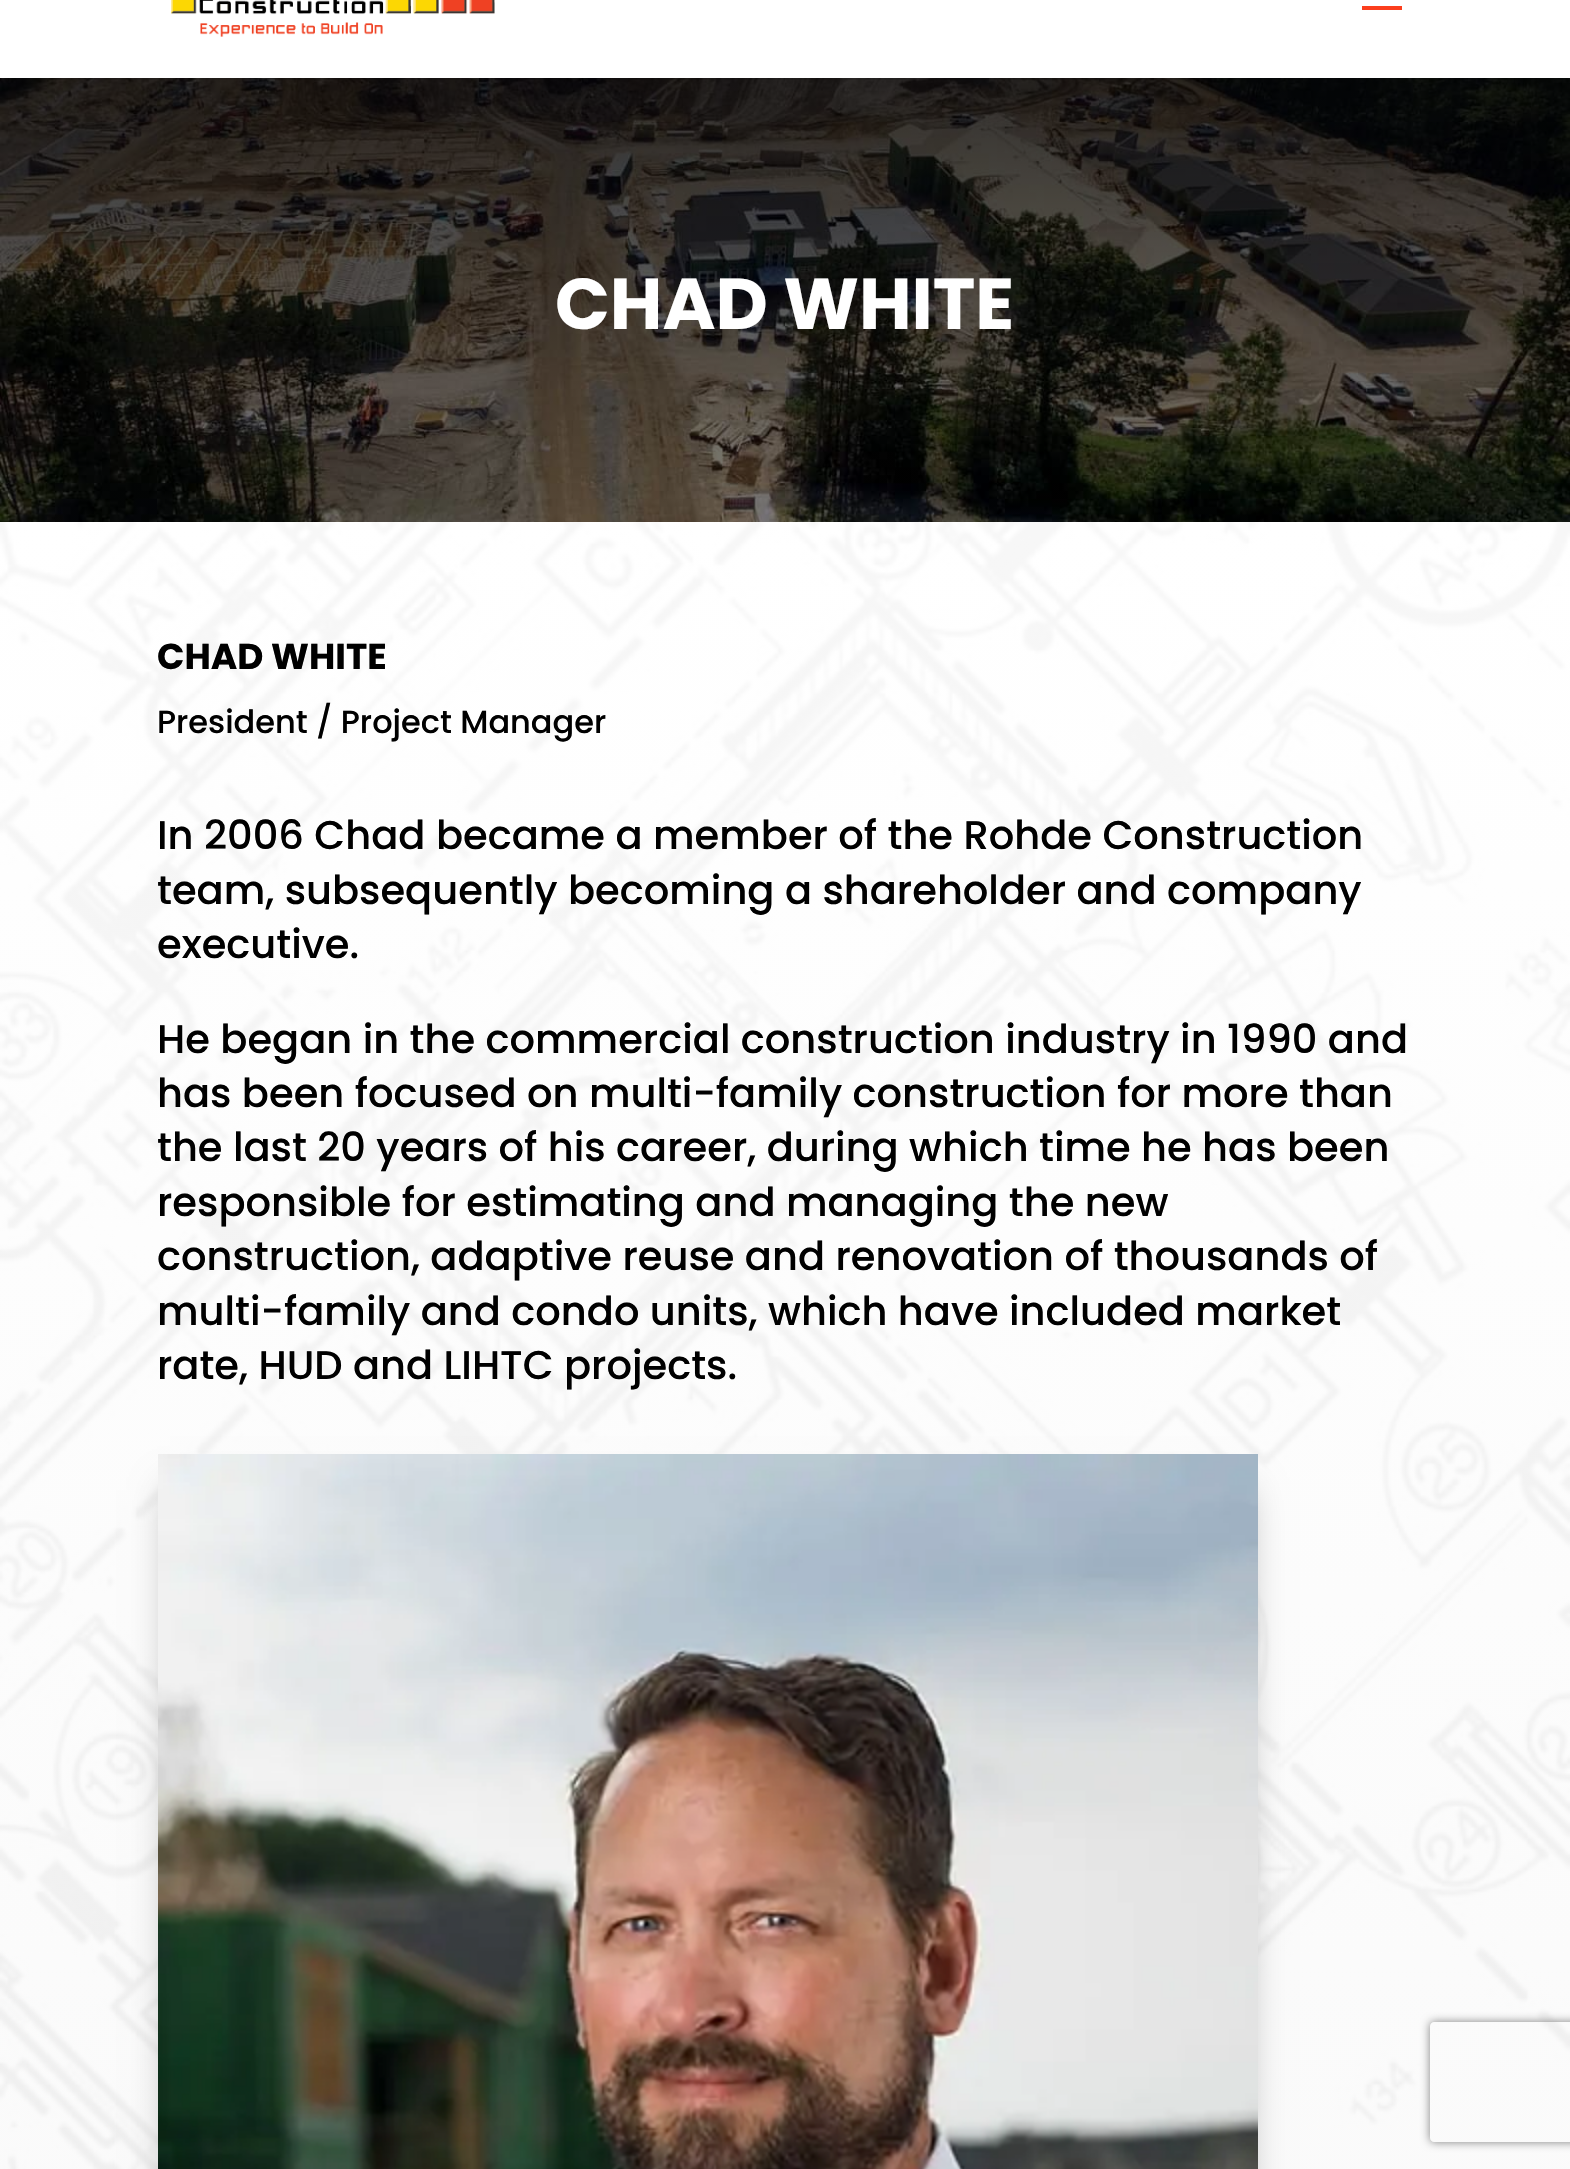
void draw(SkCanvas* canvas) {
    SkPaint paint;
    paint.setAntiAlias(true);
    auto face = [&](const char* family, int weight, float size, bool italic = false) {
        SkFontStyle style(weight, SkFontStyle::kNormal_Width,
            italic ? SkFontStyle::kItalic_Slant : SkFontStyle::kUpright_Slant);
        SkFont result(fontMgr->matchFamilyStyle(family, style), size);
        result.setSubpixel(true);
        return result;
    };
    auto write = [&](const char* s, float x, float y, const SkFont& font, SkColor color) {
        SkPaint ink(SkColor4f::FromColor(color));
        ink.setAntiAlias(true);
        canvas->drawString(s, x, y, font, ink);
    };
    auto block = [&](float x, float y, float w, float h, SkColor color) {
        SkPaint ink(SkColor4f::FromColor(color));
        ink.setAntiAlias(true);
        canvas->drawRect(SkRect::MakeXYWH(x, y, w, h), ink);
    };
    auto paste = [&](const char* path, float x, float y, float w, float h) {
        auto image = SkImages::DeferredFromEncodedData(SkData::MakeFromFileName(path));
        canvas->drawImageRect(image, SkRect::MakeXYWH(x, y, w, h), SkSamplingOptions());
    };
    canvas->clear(SK_ColorWHITE);
    paste("pic2.png", 0, 78, 1570, 444);
    block(47, 78, 1139, 2, SkColorSetARGB(26, 0, 0, 0));
    paste("pic1.png", 171, 0, 324, 37);
    block(1362, 6, 40, 4, SkColorSetRGB(252, 62, 29));
    auto kFont1 = face("Poppins", 700, 72);
    write("CHAD WHITE", 555, 329, kFont1, SK_ColorWHITE);
    paste("pic3.png", 0, 522, 1570, 1647);
    auto kFont2 = face("Poppins", 700, 36);
    write("CHAD WHITE", 157, 669, kFont2, SK_ColorBLACK);
    auto kFont3 = face("Poppins", 500, 32);
    write("President / Project Manager", 157, 733, kFont3, SK_ColorBLACK);
    auto kFont4 = face("Poppins", 500, 40);
    write("In 2006 Chad became a member of the Rohde Construction", 157, 849, kFont4, SK_ColorBLACK);
    write("team, subsequently becoming a shareholder and company", 157, 904, kFont4, SK_ColorBLACK);
    write("executive.", 157, 958, kFont4, SK_ColorBLACK);
    write("He began in the commercial construction industry in 1990 and", 157, 1053, kFont4, SK_ColorBLACK);
    write("has been focused on multi-family construction for more than", 157, 1107, kFont4, SK_ColorBLACK);
    write("the last 20 years of his career, during which time he has been", 157, 1161, kFont4, SK_ColorBLACK);
    write("responsible for estimating and managing the new", 157, 1216, kFont4, SK_ColorBLACK);
    write("construction, adaptive reuse and renovation of thousands of", 157, 1270, kFont4, SK_ColorBLACK);
    write("multi-family and condo units, which have included market", 157, 1325, kFont4, SK_ColorBLACK);
    write("rate, HUD and LIHTC projects.", 157, 1379, kFont4, SK_ColorBLACK);
    paint.setColor(SkColorSetARGB(77, 0, 0, 0));
    paint.setMaskFilter(SkMaskFilter::MakeBlur(kNormal_SkBlurStyle, 18));
    canvas->drawRect(SkRect::MakeXYWH(170, 1490, 1076, 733), paint);
    paint.setMaskFilter(nullptr);
    paste("pic4.png", 158, 1454, 1100, 715);
    canvas->save();
    canvas->clipPath(SkPathBuilder(SkPathFillType::kEvenOdd).moveTo(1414, 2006).lineTo(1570, 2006).lineTo(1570, 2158).lineTo(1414, 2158).close().moveTo(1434, 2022).lineTo(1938, 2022).cubicTo(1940, 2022, 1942, 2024, 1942, 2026).lineTo(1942, 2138).cubicTo(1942, 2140, 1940, 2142, 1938, 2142).lineTo(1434, 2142).cubicTo(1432, 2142, 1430, 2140, 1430, 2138).lineTo(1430, 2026).cubicTo(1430, 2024, 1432, 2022, 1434, 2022).close().detach(), true);
    paint.setColor(SkColorSetRGB(128, 128, 128));
    paint.setMaskFilter(SkMaskFilter::MakeBlur(kNormal_SkBlurStyle, 5));
    canvas->drawRoundRect(SkRect::MakeXYWH(1430, 2022, 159, 120), 4, 4, paint);
    paint.setMaskFilter(nullptr);
    canvas->restore();
}
